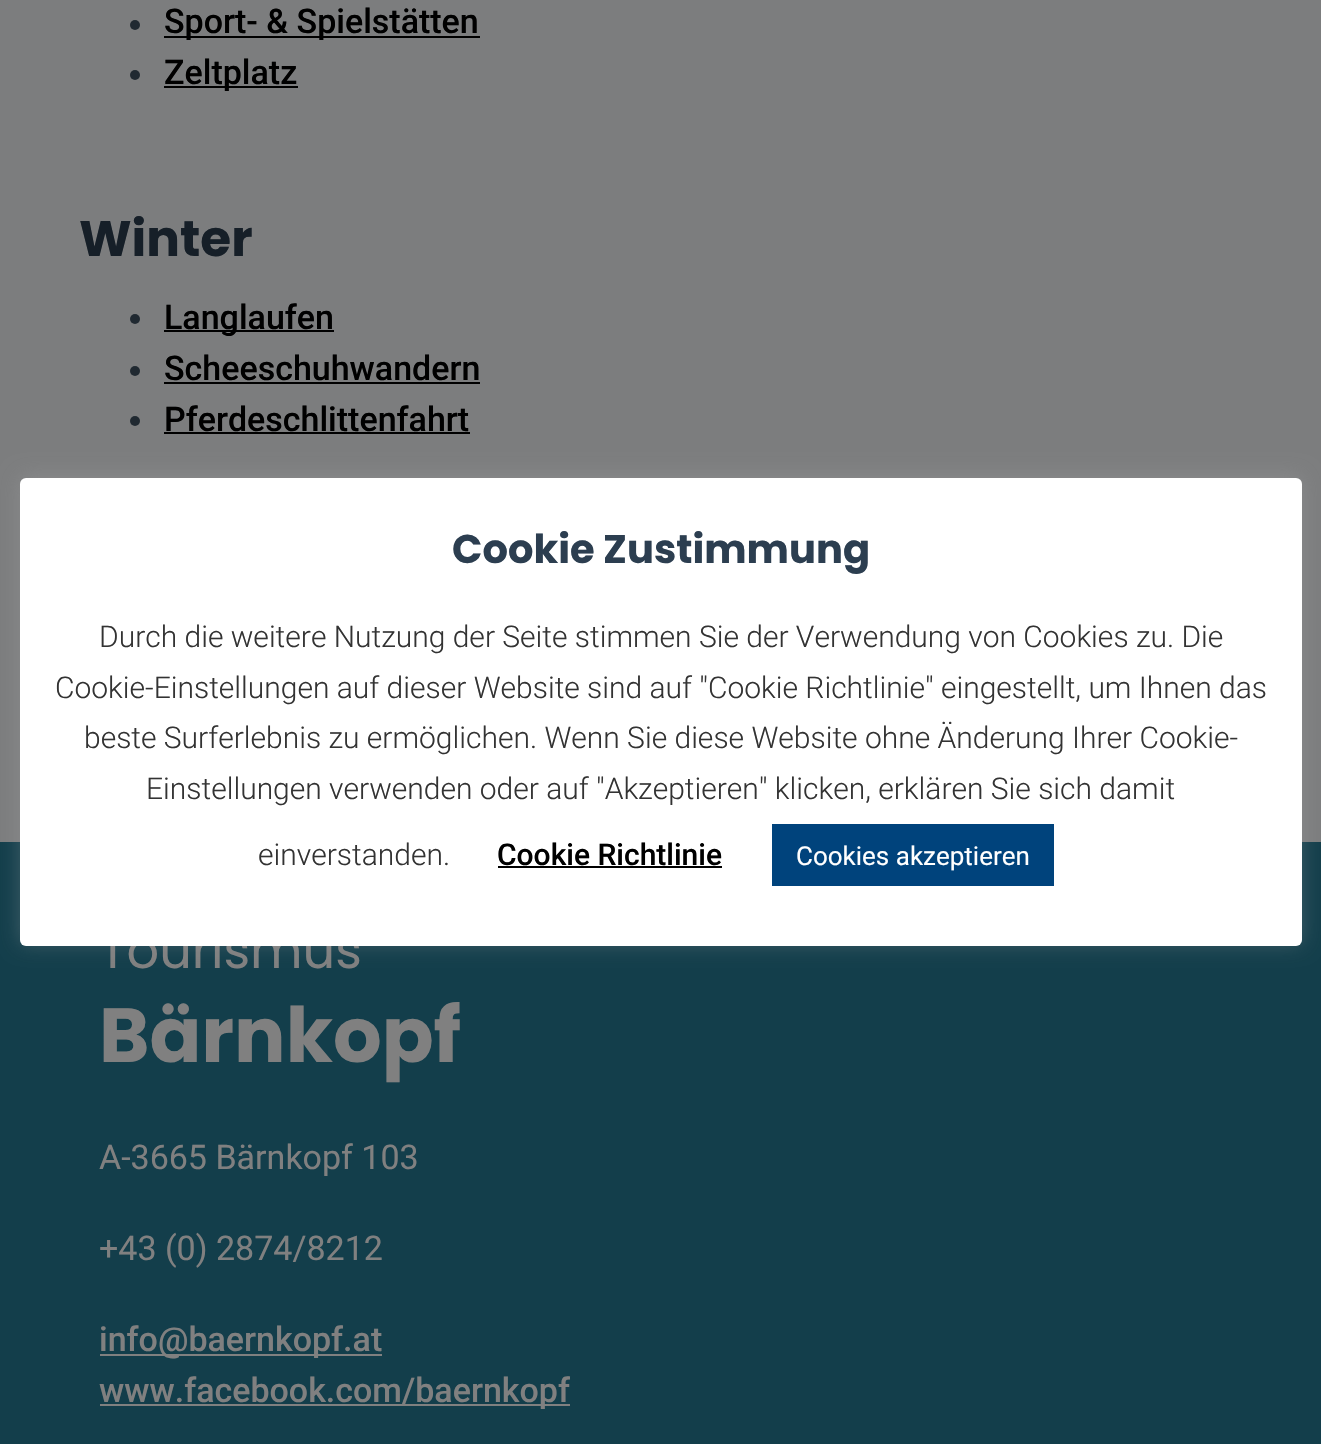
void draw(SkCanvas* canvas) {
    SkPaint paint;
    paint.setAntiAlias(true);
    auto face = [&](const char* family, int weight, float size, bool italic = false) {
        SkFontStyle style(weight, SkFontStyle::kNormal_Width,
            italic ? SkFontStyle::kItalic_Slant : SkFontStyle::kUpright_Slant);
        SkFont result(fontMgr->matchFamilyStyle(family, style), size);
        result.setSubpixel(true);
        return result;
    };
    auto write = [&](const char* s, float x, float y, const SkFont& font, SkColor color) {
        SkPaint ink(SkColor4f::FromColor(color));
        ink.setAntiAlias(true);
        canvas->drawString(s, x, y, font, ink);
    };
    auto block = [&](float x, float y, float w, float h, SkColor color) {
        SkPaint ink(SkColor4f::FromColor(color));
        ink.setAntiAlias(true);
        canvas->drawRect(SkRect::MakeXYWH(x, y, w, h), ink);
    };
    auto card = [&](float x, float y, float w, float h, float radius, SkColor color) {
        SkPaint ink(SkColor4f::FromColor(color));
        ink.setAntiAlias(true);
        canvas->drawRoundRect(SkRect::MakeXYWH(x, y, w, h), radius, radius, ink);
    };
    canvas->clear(SkColorSetRGB(124, 125, 126));
    paint.setColor(SkColorSetRGB(32, 41, 49));
    canvas->drawCircle(135, 25, 5, paint);
    block(164, 36, 316, 2, SK_ColorBLACK);
    auto kFont1 = face("Roboto", 500, 34);
    write("Sport- & Spielstätten", 164, 33, kFont1, SK_ColorBLACK);
    canvas->drawCircle(135, 75, 5, paint);
    block(164, 86, 134, 2, SK_ColorBLACK);
    write("Zeltplatz", 164, 84, kFont1, SK_ColorBLACK);
    auto kFont2 = face("Poppins", 700, 50);
    write("Winter", 79, 256, kFont2, SkColorSetRGB(22, 31, 40));
    canvas->drawCircle(135, 319, 5, paint);
    block(164, 330, 170, 2, SK_ColorBLACK);
    write("Langlaufen", 164, 329, kFont1, SK_ColorBLACK);
    canvas->drawCircle(135, 371, 5, paint);
    write("Scheeschuhwandern", 164, 380, kFont1, SK_ColorBLACK);
    block(164, 382, 316, 2, SK_ColorBLACK);
    canvas->drawCircle(135, 421, 5, paint);
    write("Pferdeschlittenfahrt", 164, 431, kFont1, SK_ColorBLACK);
    block(164, 432, 306, 2, SK_ColorBLACK);
    block(0, 842, 1321, 602, SkColorSetRGB(19, 62, 75));
    auto kFont3 = face("Poppins", 400, 51);
    write("Tourismus", 99, 968, kFont3, SkColorSetRGB(128, 128, 128));
    auto kFont4 = face("Poppins", 700, 76.5f);
    write("Bärnkopf", 99, 1062, kFont4, SkColorSetRGB(128, 128, 128));
    auto kFont5 = face("Roboto", 400, 34);
    write("A‑3665 Bärnkopf 103", 99, 1169, kFont5, SkColorSetRGB(128, 128, 128));
    write("+43 (0) 2874/8212", 99, 1260, kFont5, SkColorSetRGB(128, 128, 128));
    block(100, 1354, 282, 2, SkColorSetRGB(128, 128, 128));
    write("info@baernkopf.at", 99, 1351, kFont1, SkColorSetRGB(128, 128, 128));
    block(100, 1404, 470, 2, SkColorSetRGB(128, 128, 128));
    write("www.facebook.com/baernkopf", 99, 1402, kFont1, SkColorSetRGB(128, 128, 128));
    paint.setColor(SkColorSetARGB(77, 172, 171, 171));
    paint.setMaskFilter(SkMaskFilter::MakeBlur(kNormal_SkBlurStyle, 10));
    canvas->drawRoundRect(SkRect::MakeXYWH(20, 476, 1282, 468), 6, 6, paint);
    paint.setMaskFilter(nullptr);
    card(20, 478, 1282, 468, 6, SK_ColorWHITE);
    auto kFont6 = face("Poppins", 700, 40);
    write("Cookie Zustimmung", 452, 563, kFont6, SkColorSetRGB(44, 62, 80));
    auto kFont7 = face("Roboto", 300, 30);
    write("Durch die weitere Nutzung der Seite stimmen Sie der Verwendung von Cookies zu. Die", 99, 647, kFont7, SkColorSetRGB(51, 51, 51));
    write("Cookie-Einstellungen auf dieser Website sind auf \"Cookie Richtlinie\" eingestellt, um Ihnen das", 55, 698, kFont7, SkColorSetRGB(51, 51, 51));
    write("beste Surferlebnis zu ermöglichen. Wenn Sie diese Website ohne Änderung Ihrer Cookie-", 84, 748, kFont7, SkColorSetRGB(51, 51, 51));
    write("Einstellungen verwenden oder auf \"Akzeptieren\" klicken, erklären Sie sich damit", 146, 799, kFont7, SkColorSetRGB(51, 51, 51));
    write("einverstanden.", 258, 865, kFont7, SkColorSetRGB(51, 51, 51));
    auto kFont8 = face("Roboto", 500, 30);
    write("Cookie Richtlinie", 497, 865, kFont8, SK_ColorBLACK);
    block(498, 866, 224, 2, SK_ColorBLACK);
    block(772, 824, 282, 62, SkColorSetRGB(0, 67, 124));
    auto kFont9 = face("Roboto", 400, 26);
    write("Cookies akzeptieren", 796, 865, kFont9, SK_ColorWHITE);
}
